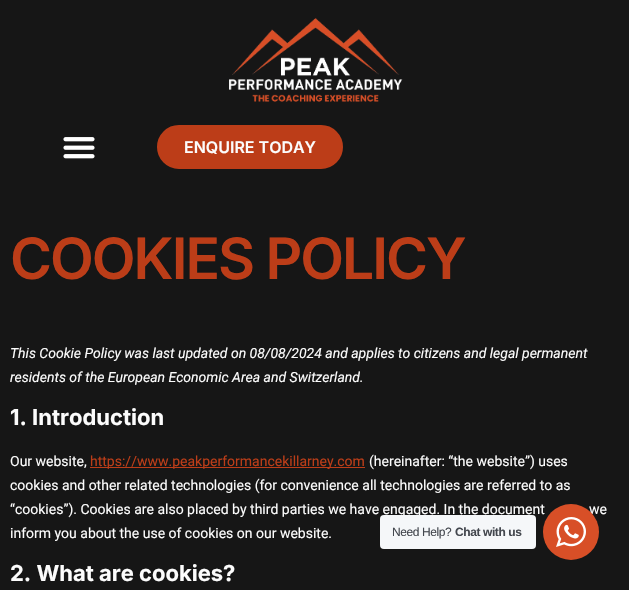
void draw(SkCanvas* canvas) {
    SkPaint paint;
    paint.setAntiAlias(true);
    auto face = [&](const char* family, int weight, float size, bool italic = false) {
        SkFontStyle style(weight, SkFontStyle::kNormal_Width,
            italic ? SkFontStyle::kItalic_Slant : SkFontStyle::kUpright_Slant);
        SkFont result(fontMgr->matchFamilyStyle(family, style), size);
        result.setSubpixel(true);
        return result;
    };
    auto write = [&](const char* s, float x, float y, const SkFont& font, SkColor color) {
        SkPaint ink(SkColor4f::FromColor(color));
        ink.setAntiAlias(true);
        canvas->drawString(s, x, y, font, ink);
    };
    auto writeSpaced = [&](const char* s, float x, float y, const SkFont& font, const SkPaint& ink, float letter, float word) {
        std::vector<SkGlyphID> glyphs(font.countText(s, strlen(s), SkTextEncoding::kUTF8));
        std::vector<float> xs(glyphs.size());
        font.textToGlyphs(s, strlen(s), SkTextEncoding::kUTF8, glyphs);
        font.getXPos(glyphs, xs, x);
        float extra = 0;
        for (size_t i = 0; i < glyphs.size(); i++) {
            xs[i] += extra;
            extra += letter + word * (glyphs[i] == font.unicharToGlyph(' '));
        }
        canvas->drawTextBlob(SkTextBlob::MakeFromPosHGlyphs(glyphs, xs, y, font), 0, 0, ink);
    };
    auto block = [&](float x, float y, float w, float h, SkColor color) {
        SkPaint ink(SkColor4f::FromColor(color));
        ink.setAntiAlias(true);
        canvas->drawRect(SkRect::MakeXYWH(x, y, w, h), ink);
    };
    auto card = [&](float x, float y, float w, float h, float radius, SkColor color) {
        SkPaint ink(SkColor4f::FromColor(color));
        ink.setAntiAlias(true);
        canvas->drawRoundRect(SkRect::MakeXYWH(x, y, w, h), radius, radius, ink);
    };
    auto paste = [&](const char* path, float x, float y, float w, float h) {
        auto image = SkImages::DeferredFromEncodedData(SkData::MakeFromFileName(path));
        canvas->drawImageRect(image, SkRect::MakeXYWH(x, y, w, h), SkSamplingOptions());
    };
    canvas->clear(SkColorSetRGB(22, 22, 22));
    paste("pic1.png", 229, 18, 174, 84);
    paste("pic2.png", 63, 137, 32, 22);
    paint.setColor(SkColorSetRGB(188, 61, 24));
    canvas->drawRoundRect(SkRect::MakeXYWH(158, 126, 184, 42), 21, 21, paint);
    paint.setStyle(SkPaint::kStroke_Style);
    paint.setStrokeWidth(2);
    canvas->drawRoundRect(SkRect::MakeXYWH(158, 126, 184, 42), 21, 21, paint);
    auto kFont1 = face("Inter", 600, 16);
    write("ENQUIRE TODAY", 184, 153, kFont1, SkColorSetRGB(252, 252, 252));
    auto kFont2 = face("Inter", 600, 57);
    paint.setStyle(SkPaint::kFill_Style);
    writeSpaced("COOKIES POLICY", 10, 279, kFont2, paint, -2, 0);
    auto kFont3 = face("Roboto", 400, 14, true);
    write("This Cookie Policy was last updated on 08/08/2024 and applies to citizens and legal permanent", 10, 358, kFont3, SkColorSetRGB(252, 252, 252));
    write("residents of the European Economic Area and Switzerland.", 10, 382, kFont3, SkColorSetRGB(252, 252, 252));
    auto kFont4 = face("Inter", 700, 22);
    write("1. Introduction", 10, 425, kFont4, SkColorSetRGB(252, 252, 252));
    auto kFont5 = face("Roboto", 400, 14);
    write("Our website,", 10, 466, kFont5, SkColorSetRGB(252, 252, 252));
    block(90, 467, 275, 1, SkColorSetRGB(188, 61, 24));
    write("https://www.peakperformancekillarney.com", 90, 466, kFont5, SkColorSetRGB(188, 61, 24));
    write("(hereinafter: “the website”) uses", 369, 466, kFont5, SkColorSetRGB(252, 252, 252));
    write("cookies and other related technologies (for convenience all technologies are referred to as", 10, 490, kFont5, SkColorSetRGB(252, 252, 252));
    write("“cookies”). Cookies are also placed by third parties we have engaged. In the document", 10, 514, kFont5, SkColorSetRGB(252, 252, 252));
    write("we", 589, 514, kFont5, SkColorSetRGB(252, 252, 252));
    write("inform you about the use of cookies on our website.", 10, 538, kFont5, SkColorSetRGB(252, 252, 252));
    write("2. What are cookies?", 10, 581, kFont4, SkColorSetRGB(252, 252, 252));
    card(380, 515, 156, 34, 4, SkColorSetRGB(245, 247, 249));
    auto kFont6 = face("Liberation Sans", 400, 12);
    paint.setColor(SkColorSetRGB(67, 71, 78));
    writeSpaced("Need Help?", 392, 536, kFont6, paint, -0.4f, 0);
    auto kFont7 = face("Liberation Sans", 700, 12);
    writeSpaced("Chat with us", 455, 536, kFont7, paint, -0.4f, 0);
    paint.setColor(SkColorSetRGB(216, 79, 39));
    canvas->drawCircle(571, 532, 28, paint);
    paste("pic3.png", 556, 517, 30, 30);
}
